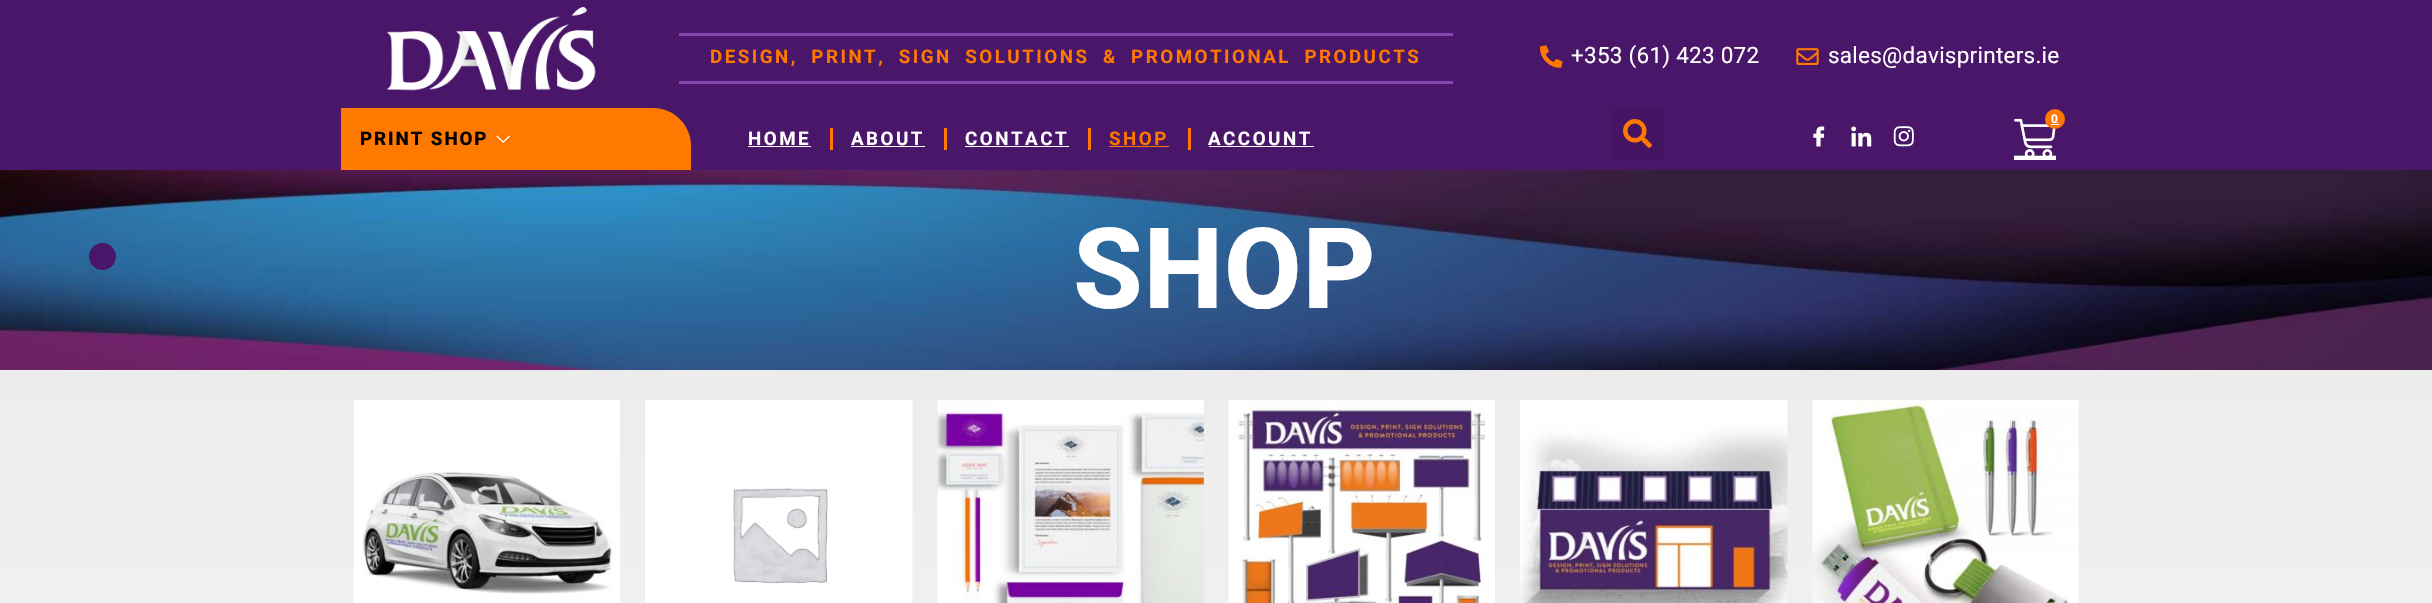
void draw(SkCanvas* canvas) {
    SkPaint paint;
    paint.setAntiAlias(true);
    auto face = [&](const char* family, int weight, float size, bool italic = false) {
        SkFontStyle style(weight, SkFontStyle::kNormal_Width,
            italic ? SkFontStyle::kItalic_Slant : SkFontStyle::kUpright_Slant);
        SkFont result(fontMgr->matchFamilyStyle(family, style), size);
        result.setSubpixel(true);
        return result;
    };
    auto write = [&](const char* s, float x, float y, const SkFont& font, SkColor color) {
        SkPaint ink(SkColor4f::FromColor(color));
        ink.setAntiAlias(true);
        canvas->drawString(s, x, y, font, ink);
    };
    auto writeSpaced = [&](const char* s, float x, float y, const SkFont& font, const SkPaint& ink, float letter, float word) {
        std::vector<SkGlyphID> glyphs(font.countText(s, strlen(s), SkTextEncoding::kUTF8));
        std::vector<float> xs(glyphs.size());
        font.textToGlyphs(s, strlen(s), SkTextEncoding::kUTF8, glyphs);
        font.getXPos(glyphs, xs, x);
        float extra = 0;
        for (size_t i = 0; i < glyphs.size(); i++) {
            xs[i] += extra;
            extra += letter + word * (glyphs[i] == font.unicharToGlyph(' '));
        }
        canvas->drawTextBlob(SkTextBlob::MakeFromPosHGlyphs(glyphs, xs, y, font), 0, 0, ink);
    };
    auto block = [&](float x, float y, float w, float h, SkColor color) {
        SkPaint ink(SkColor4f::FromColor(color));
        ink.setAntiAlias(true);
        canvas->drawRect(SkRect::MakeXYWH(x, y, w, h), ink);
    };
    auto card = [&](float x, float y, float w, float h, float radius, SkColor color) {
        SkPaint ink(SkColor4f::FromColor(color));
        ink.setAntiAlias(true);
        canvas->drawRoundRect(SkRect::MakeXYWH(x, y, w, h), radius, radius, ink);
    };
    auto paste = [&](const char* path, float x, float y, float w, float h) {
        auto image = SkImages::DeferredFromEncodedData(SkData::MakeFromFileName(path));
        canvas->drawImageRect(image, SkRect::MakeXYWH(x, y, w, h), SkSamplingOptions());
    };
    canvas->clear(SkColorSetRGB(73, 22, 105));
    paste("pic1.png", 387, 7, 209, 84);
    block(679, 33, 774, 3, SkColorSetRGB(133, 69, 174));
    block(679, 81, 774, 3, SkColorSetRGB(133, 69, 174));
    auto kFont1 = face("Roboto", 700, 18.75f);
    paint.setColor(SkColorSetRGB(255, 120, 0));
    writeSpaced("DESIGN, PRINT, SIGN SOLUTIONS & PROMOTIONAL PRODUCTS", 710, 63, kFont1, paint, 2.5f, 6.25f);
    paste("pic2.png", 1540, 45, 23, 23);
    auto kFont2 = face("Roboto", 400, 22.5f);
    paint.setColor(SK_ColorWHITE);
    writeSpaced("+353 (61) 423 072", 1571, 63, kFont2, paint, 0.25f, 0);
    paste("pic3.png", 1796, 48, 23, 17);
    writeSpaced("sales@davisprinters.ie", 1828, 63, kFont2, paint, 0.25f, 0);
    paint.setColor(SkColorSetRGB(255, 120, 0));
    canvas->drawPath(SkPathBuilder().moveTo(341, 108).lineTo(653, 108).cubicTo(674, 108, 691, 125, 691, 146).lineTo(691, 170).lineTo(341, 170).close().detach(), paint);
    auto kFont3 = face("Roboto", 800, 18.75f);
    paint.setColor(SK_ColorBLACK);
    writeSpaced("PRINT SHOP", 360, 145, kFont3, paint, 1.9f, 0);
    paste("pic4.png", 496, 135, 14, 8);
    card(1611, 108, 53, 52, 4, SkColorSetRGB(69, 21, 100));
    paste("pic5.png", 1623, 119, 29, 29);
    paste("pic6.png", 1813, 126, 12, 21);
    paste("pic7.png", 1851, 126, 21, 21);
    paste("pic8.png", 1893, 126, 21, 21);
    block(2014, 155, 42, 1, SkColorSetRGB(105, 114, 125));
    paste("pic9.png", 2014, 118, 42, 38);
    paint.setColor(SkColorSetRGB(255, 120, 0));
    canvas->drawCircle(2055, 119, 10, paint);
    auto kFont4 = face("Roboto", 700, 12);
    write("0", 2051, 123, kFont4, SK_ColorWHITE);
    block(2051, 124, 8, 1, SK_ColorWHITE);
    block(2014, 156, 42, 4, SK_ColorWHITE);
    paint.setColor(SK_ColorWHITE);
    writeSpaced("HOME", 748, 145, kFont1, paint, 2.5f, 0);
    block(748, 146, 63, 1, SK_ColorWHITE);
    block(830, 128, 3, 22, SkColorSetRGB(255, 120, 0));
    writeSpaced("ABOUT", 851, 145, kFont1, paint, 2.5f, 0);
    block(851, 146, 74, 1, SK_ColorWHITE);
    block(944, 128, 3, 22, SkColorSetRGB(255, 120, 0));
    writeSpaced("CONTACT", 965, 145, kFont1, paint, 2.5f, 0);
    block(965, 146, 104, 1, SK_ColorWHITE);
    block(1088, 128, 3, 22, SkColorSetRGB(255, 120, 0));
    paint.setColor(SkColorSetRGB(255, 120, 0));
    writeSpaced("SHOP", 1109, 145, kFont1, paint, 2.5f, 0);
    block(1109, 146, 60, 1, SkColorSetRGB(255, 120, 0));
    block(1188, 128, 3, 22, SkColorSetRGB(255, 120, 0));
    paint.setColor(SK_ColorWHITE);
    writeSpaced("ACCOUNT", 1208, 145, kFont1, paint, 2.5f, 0);
    block(1209, 146, 105, 1, SK_ColorWHITE);
    paste("pic10.png", 0, 170, 2432, 200);
    paint.setColor(SkColorSetRGB(73, 22, 105));
    canvas->drawCircle(102.5f, 256.5f, 13.5f, paint);
    auto kFont5 = face("Roboto", 800, 112.5f);
    paint.setColor(SK_ColorWHITE);
    writeSpaced("SHOP", 1073, 308, kFont5, paint, 1, 0);
    {
        const SkColor colors[] = {SkColorSetRGB(236, 236, 236), SK_ColorWHITE};
        const float stops[] = {0, 0.25f};
        const SkPoint ends[] = {{1216, 370}, {1216, 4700}};
        paint.setShader(SkGradientShader::MakeLinear(ends, colors, stops, 2, SkTileMode::kClamp));
        paint.setAlpha(255);
    }
    canvas->drawRect(SkRect::MakeXYWH(0, 370, 2432, 233), paint);
    paste("pic11.png", 353, 400, 267, 203);
    paste("pic12.png", 645, 400, 268, 203);
    paste("pic13.png", 937, 400, 267, 203);
    paste("pic14.png", 1228, 400, 267, 203);
    paste("pic15.png", 1520, 400, 268, 203);
    paste("pic16.png", 1812, 400, 267, 203);
}
